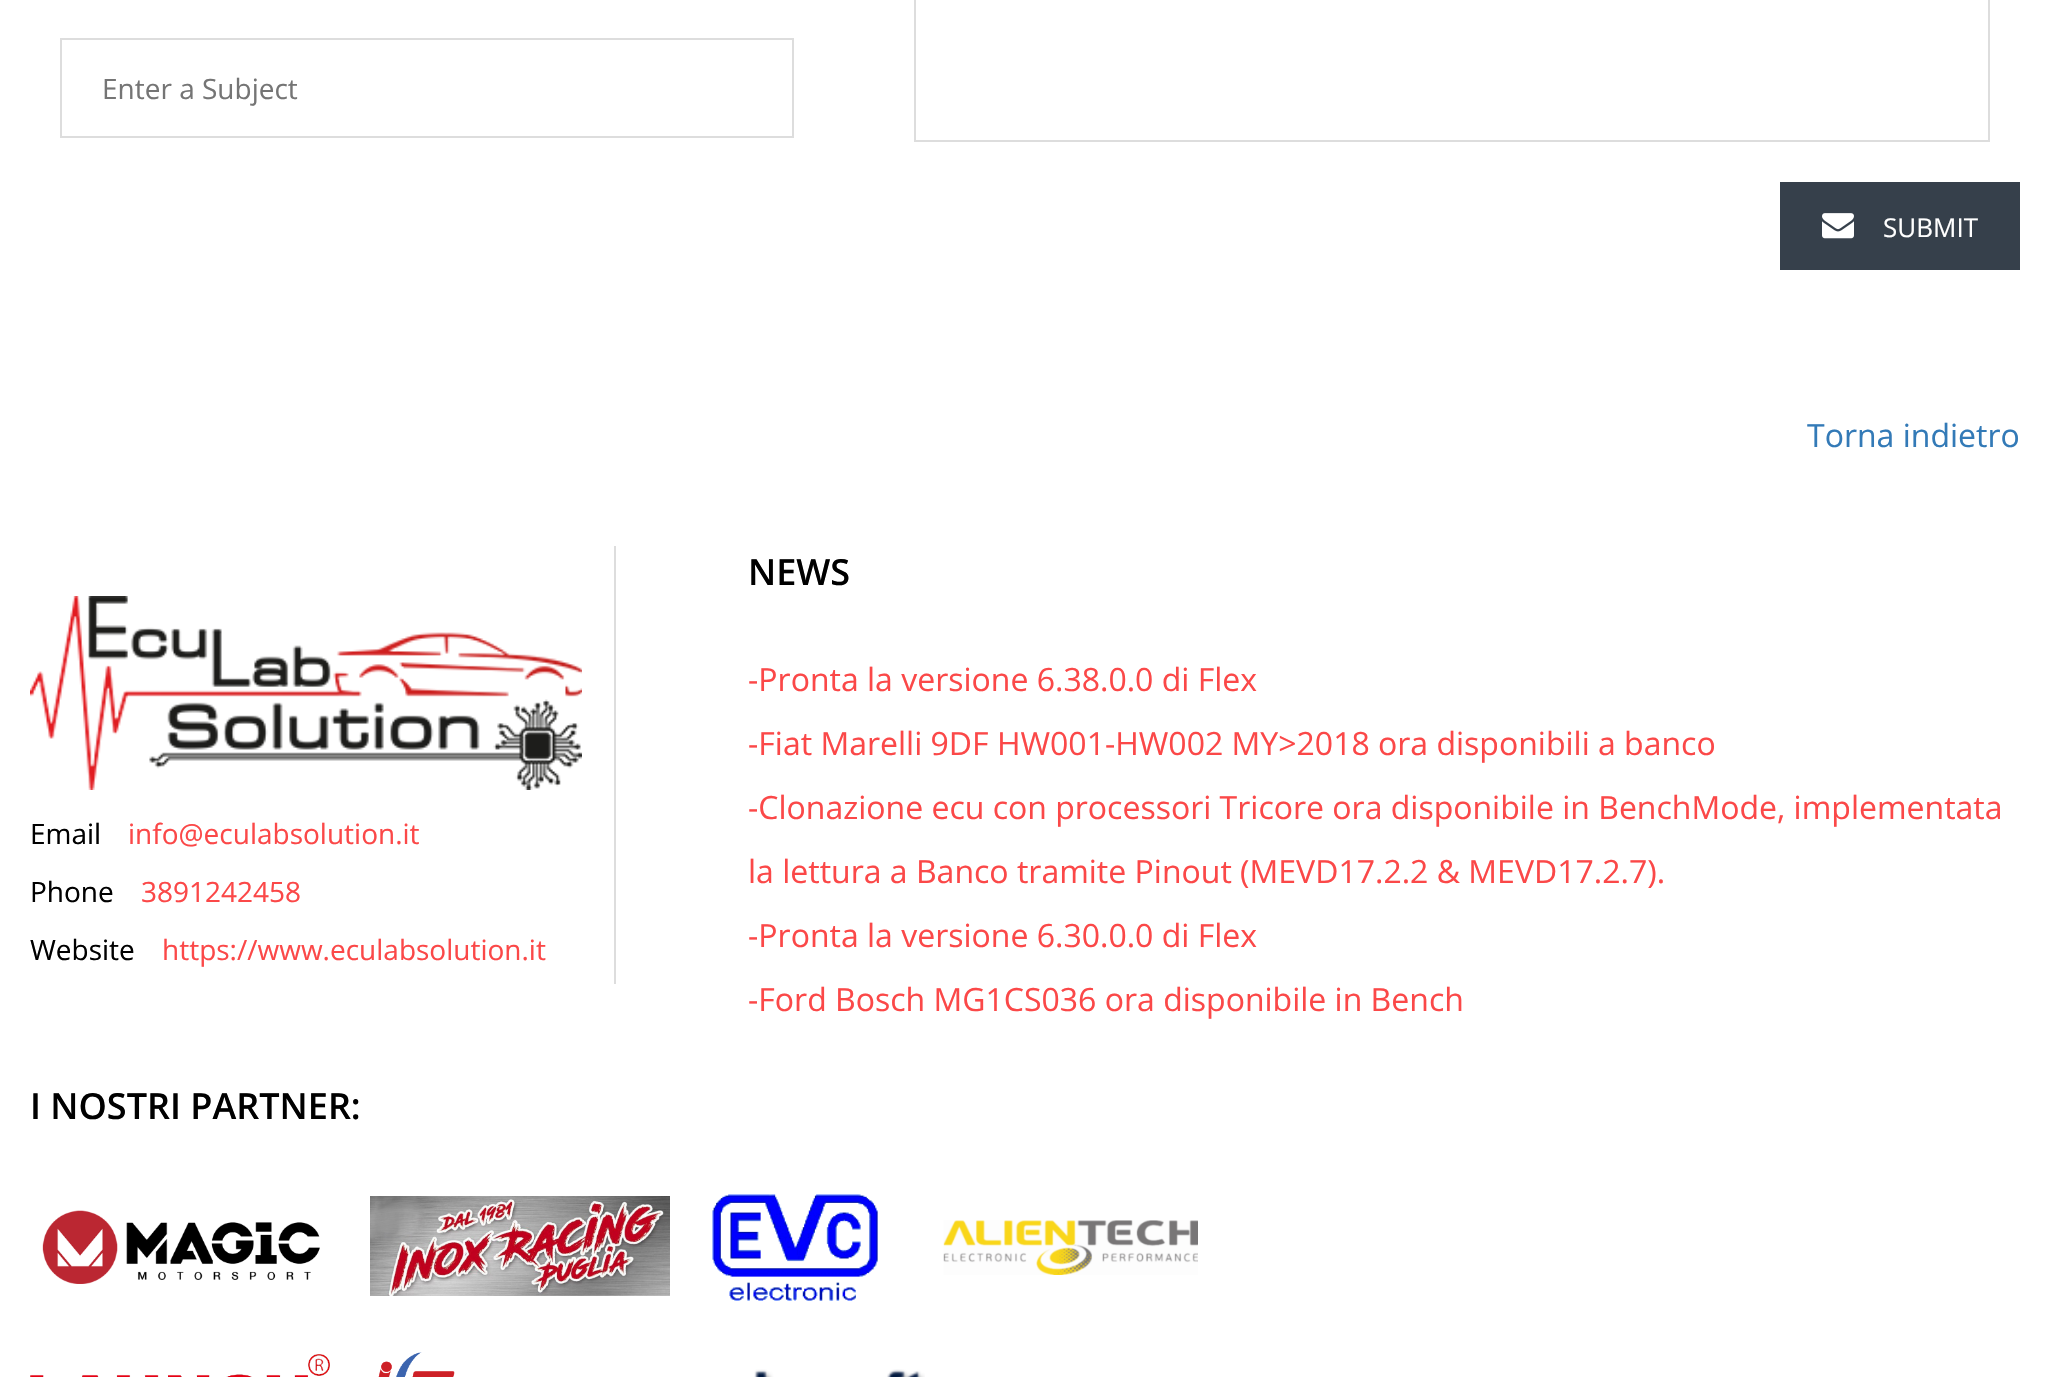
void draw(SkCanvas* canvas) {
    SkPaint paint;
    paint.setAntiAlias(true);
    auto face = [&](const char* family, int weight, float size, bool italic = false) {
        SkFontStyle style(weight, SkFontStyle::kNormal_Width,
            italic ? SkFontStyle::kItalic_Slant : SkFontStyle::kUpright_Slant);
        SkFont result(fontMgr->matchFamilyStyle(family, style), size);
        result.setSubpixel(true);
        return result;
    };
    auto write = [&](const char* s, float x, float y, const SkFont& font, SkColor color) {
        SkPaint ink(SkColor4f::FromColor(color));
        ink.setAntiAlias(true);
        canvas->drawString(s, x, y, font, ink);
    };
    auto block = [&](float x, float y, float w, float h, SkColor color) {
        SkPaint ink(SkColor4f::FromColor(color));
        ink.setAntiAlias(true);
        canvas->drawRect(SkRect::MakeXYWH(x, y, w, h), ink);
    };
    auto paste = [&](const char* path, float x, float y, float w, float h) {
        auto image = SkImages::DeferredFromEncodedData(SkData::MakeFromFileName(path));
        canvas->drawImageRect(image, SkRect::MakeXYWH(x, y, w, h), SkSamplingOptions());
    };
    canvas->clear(SK_ColorWHITE);
    paint.setStyle(SkPaint::kStroke_Style);
    paint.setStrokeWidth(2);
    paint.setColor(SkColorSetRGB(221, 221, 221));
    canvas->drawRect(SkRect::MakeXYWH(61, 39, 732, 98), paint);
    auto kFont1 = face("Open Sans", 400, 28);
    write("Enter a Subject", 102, 99, kFont1, SkColorSetRGB(117, 117, 117));
    canvas->drawRect(SkRect::MakeXYWH(915, -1, 1074, 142), paint);
    block(1780, 182, 240, 88, SkColorSetRGB(54, 64, 75));
    paste("pic1.png", 1822, 213, 32, 26);
    auto kFont2 = face("Open Sans", 400, 26);
    write("SUBMIT", 1883, 237, kFont2, SK_ColorWHITE);
    auto kFont3 = face("Open Sans", 400, 32);
    write("Torna indietro", 1807, 447, kFont3, SkColorSetRGB(51, 122, 183));
    block(614, 546, 2, 438, SkColorSetRGB(221, 221, 221));
    paste("pic2.png", 30, 596, 552, 194);
    write("Email", 30, 844, kFont1, SK_ColorBLACK);
    write("info@eculabsolution.it", 128, 844, kFont1, SkColorSetRGB(251, 72, 72));
    write("Phone", 30, 902, kFont1, SK_ColorBLACK);
    write("3891242458", 141, 902, kFont1, SkColorSetRGB(251, 72, 72));
    write("Website", 30, 960, kFont1, SK_ColorBLACK);
    write("https://www.eculabsolution.it", 162, 960, kFont1, SkColorSetRGB(251, 72, 72));
    auto kFont4 = face("Open Sans", 600, 36);
    write("NEWS", 748, 585, kFont4, SK_ColorBLACK);
    write("-Pronta la versione 6.38.0.0 di Flex", 748, 691, kFont3, SkColorSetRGB(251, 72, 72));
    write("-Fiat Marelli 9DF HW001-HW002 MY>2018 ora disponibili a banco", 748, 755, kFont3, SkColorSetRGB(251, 72, 72));
    write("-Clonazione ecu con processori Tricore ora disponibile in BenchMode, implementata", 748, 819, kFont3, SkColorSetRGB(251, 72, 72));
    write("la lettura a Banco tramite Pinout (MEVD17.2.2 & MEVD17.2.7).", 748, 883, kFont3, SkColorSetRGB(251, 72, 72));
    write("-Pronta la versione 6.30.0.0 di Flex", 748, 947, kFont3, SkColorSetRGB(251, 72, 72));
    write("-Ford Bosch MG1CS036 ora disponibile in Bench", 748, 1011, kFont3, SkColorSetRGB(251, 72, 72));
    write("I NOSTRI PARTNER:", 30, 1119, kFont4, SK_ColorBLACK);
    paste("pic3.png", 42, 1210, 278, 74);
    paste("pic4.png", 370, 1196, 300, 100);
    paste("pic5.png", 712, 1194, 166, 107);
    paste("pic6.png", 943, 1220, 255, 55);
    paste("pic7.png", 30, 1354, 300, 23);
    paste("pic8.png", 378, 1352, 77, 25);
    paste("pic9.png", 754, 1369, 171, 8);
}
